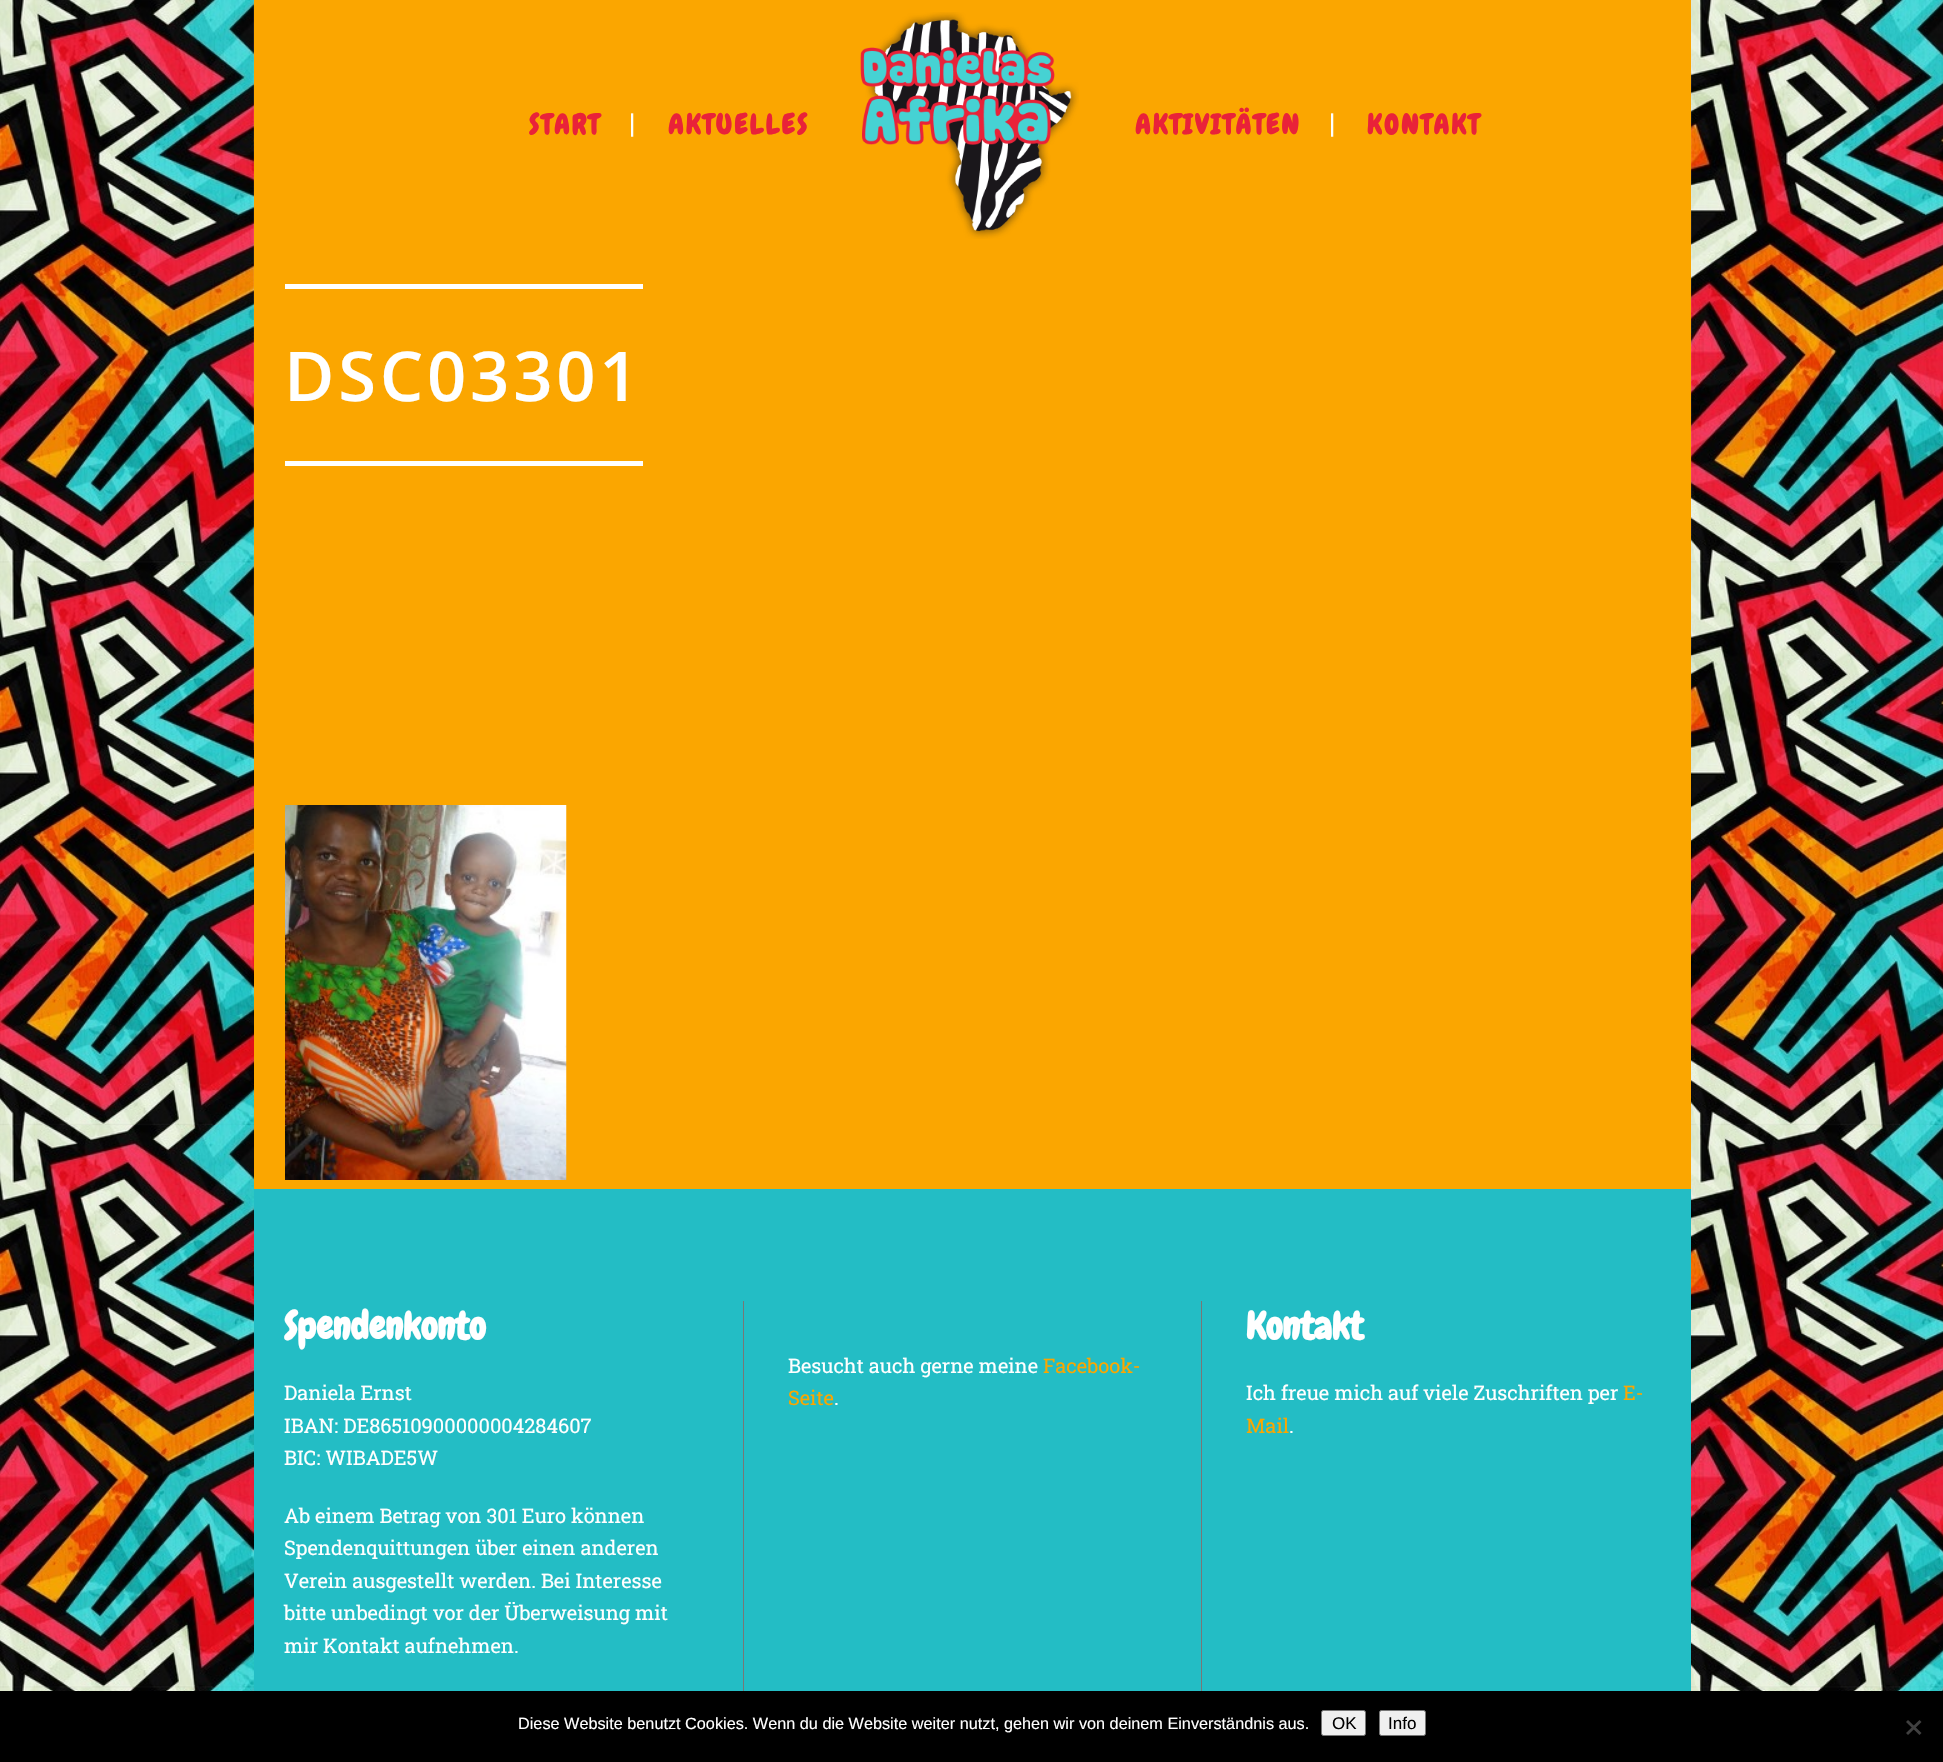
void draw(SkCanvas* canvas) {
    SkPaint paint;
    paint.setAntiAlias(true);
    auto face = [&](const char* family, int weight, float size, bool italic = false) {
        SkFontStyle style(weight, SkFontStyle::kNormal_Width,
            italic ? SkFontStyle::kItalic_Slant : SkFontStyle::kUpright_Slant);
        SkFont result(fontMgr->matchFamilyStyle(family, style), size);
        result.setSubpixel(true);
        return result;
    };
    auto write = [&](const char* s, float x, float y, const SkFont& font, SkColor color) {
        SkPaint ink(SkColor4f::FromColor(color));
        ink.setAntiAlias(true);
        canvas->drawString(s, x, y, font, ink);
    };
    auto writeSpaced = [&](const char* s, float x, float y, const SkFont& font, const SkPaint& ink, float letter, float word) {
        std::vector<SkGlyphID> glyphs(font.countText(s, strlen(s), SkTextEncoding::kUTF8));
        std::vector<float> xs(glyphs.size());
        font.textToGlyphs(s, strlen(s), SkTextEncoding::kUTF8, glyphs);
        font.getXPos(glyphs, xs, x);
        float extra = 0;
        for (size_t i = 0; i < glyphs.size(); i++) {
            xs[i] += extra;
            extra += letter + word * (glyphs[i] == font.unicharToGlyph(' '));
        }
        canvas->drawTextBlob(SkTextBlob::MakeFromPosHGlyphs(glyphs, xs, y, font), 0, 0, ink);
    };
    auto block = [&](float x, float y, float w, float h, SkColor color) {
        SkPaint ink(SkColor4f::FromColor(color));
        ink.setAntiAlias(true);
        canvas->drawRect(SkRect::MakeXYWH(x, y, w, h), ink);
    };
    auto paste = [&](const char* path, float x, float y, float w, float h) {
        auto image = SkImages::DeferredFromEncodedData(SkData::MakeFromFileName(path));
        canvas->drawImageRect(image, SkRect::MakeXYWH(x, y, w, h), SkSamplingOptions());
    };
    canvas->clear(SK_ColorWHITE);
    paste("pic1.png", 0, 0, 1943, 1691);
    paste("pic3.png", 253, 0, 1439, 750);
    block(254, 0, 1437, 750, SkColorSetRGB(251, 166, 0));
    auto kFont1 = face("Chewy", 700, 27.5f);
    paint.setColor(SkColorSetRGB(233, 34, 57));
    writeSpaced("START", 529, 134, kFont1, paint, 2.5f, 0);
    auto kFont2 = face("Roboto Slab", 400, 27.5f);
    write("|", 629, 133, kFont2, SK_ColorWHITE);
    writeSpaced("AKTUELLES", 668, 134, kFont1, paint, 2.5f, 0);
    paste("pic2.png", 860, 12, 219, 227);
    writeSpaced("AKTIVITÄTEN", 1135, 134, kFont1, paint, 2.5f, 0);
    write("|", 1329, 133, kFont2, SK_ColorWHITE);
    writeSpaced("KONTAKT", 1367, 134, kFont1, paint, 2.5f, 0);
    block(254, 750, 1437, 439, SkColorSetRGB(251, 166, 0));
    block(285, 284, 358, 5, SK_ColorWHITE);
    block(285, 461, 358, 5, SK_ColorWHITE);
    auto kFont3 = face("Open Sans", 600, 68.75f);
    paint.setColor(SK_ColorWHITE);
    writeSpaced("DSC03301", 284, 401, kFont3, paint, 3.75f, 0);
    paste("pic4.png", 285, 805, 282, 375);
    block(254, 1189, 1437, 502, SkColorSetRGB(35, 189, 197));
    auto kFont4 = face("Chewy", 700, 37.5f);
    write("Spendenkonto", 284, 1339, kFont4, SK_ColorWHITE);
    auto kFont5 = face("Roboto Slab", 400, 20);
    write("Daniela Ernst", 284, 1400, kFont5, SK_ColorWHITE);
    write("IBAN: DE86510900000004284607", 284, 1433, kFont5, SK_ColorWHITE);
    write("BIC: WIBADE5W", 284, 1465, kFont5, SK_ColorWHITE);
    write("Ab einem Betrag von 301 Euro können", 284, 1523, kFont5, SK_ColorWHITE);
    write("Spendenquittungen über einen anderen", 284, 1555, kFont5, SK_ColorWHITE);
    write("Verein ausgestellt werden. Bei Interesse", 284, 1588, kFont5, SK_ColorWHITE);
    write("bitte unbedingt vor der Überweisung mit", 284, 1620, kFont5, SK_ColorWHITE);
    write("mir Kontakt aufnehmen.", 284, 1653, kFont5, SK_ColorWHITE);
    block(743, 1301, 1, 390, SkColorSetRGB(119, 119, 119));
    write("Besucht auch gerne meine", 788, 1373, kFont5, SK_ColorWHITE);
    write("Facebook-", 1043, 1373, kFont5, SkColorSetRGB(251, 166, 0));
    write("Seite", 788, 1405, kFont5, SkColorSetRGB(251, 166, 0));
    write(".", 834, 1405, kFont5, SK_ColorWHITE);
    block(1201, 1301, 1, 390, SkColorSetRGB(119, 119, 119));
    write("Kontakt", 1246, 1339, kFont4, SK_ColorWHITE);
    write("Ich freue mich auf viele Zuschriften per", 1246, 1400, kFont5, SK_ColorWHITE);
    write("E-", 1623, 1400, kFont5, SkColorSetRGB(251, 166, 0));
    write("Mail", 1246, 1433, kFont5, SkColorSetRGB(251, 166, 0));
    write(".", 1289, 1433, kFont5, SK_ColorWHITE);
    block(0, 1691, 1943, 71, SK_ColorBLACK);
    auto kFont6 = face("Liberation Sans", 400, 16.25f);
    write("Diese Website benutzt Cookies. Wenn du die Website weiter nutzt, gehen wir von deinem Einverständnis aus.", 518, 1729, kFont6, SK_ColorWHITE);
    paint.setColor(SkColorSetRGB(239, 239, 239));
    canvas->drawRoundRect(SkRect::MakeXYWH(1321.5f, 1710.5f, 44, 25), 2, 2, paint);
    paint.setStyle(SkPaint::kStroke_Style);
    paint.setStrokeWidth(1);
    paint.setColor(SkColorSetRGB(118, 118, 118));
    canvas->drawRoundRect(SkRect::MakeXYWH(1321.5f, 1710.5f, 44, 25), 2, 2, paint);
    auto kFont7 = face("Liberation Sans", 400, 17);
    write("OK", 1332, 1729, kFont7, SK_ColorBLACK);
    paint.setStyle(SkPaint::kFill_Style);
    paint.setColor(SkColorSetRGB(239, 239, 239));
    canvas->drawRoundRect(SkRect::MakeXYWH(1379.5f, 1710.5f, 46, 25), 2, 2, paint);
    paint.setStyle(SkPaint::kStroke_Style);
    paint.setColor(SkColorSetRGB(118, 118, 118));
    canvas->drawRoundRect(SkRect::MakeXYWH(1379.5f, 1710.5f, 46, 25), 2, 2, paint);
    write("Info", 1388, 1729, kFont7, SK_ColorBLACK);
    paint.setStyle(SkPaint::kFill_Style);
    paint.setColor(SkColorSetRGB(64, 64, 64));
    canvas->drawPath(SkPathBuilder().moveTo(1919.5f, 1720).lineTo(1921.5f, 1722).lineTo(1908, 1735).lineTo(1906, 1733).close().detach(), paint);
    canvas->drawPath(SkPathBuilder().moveTo(1906, 1722).lineTo(1908, 1720).lineTo(1921.5f, 1733).lineTo(1919.5f, 1735).close().detach(), paint);
}
